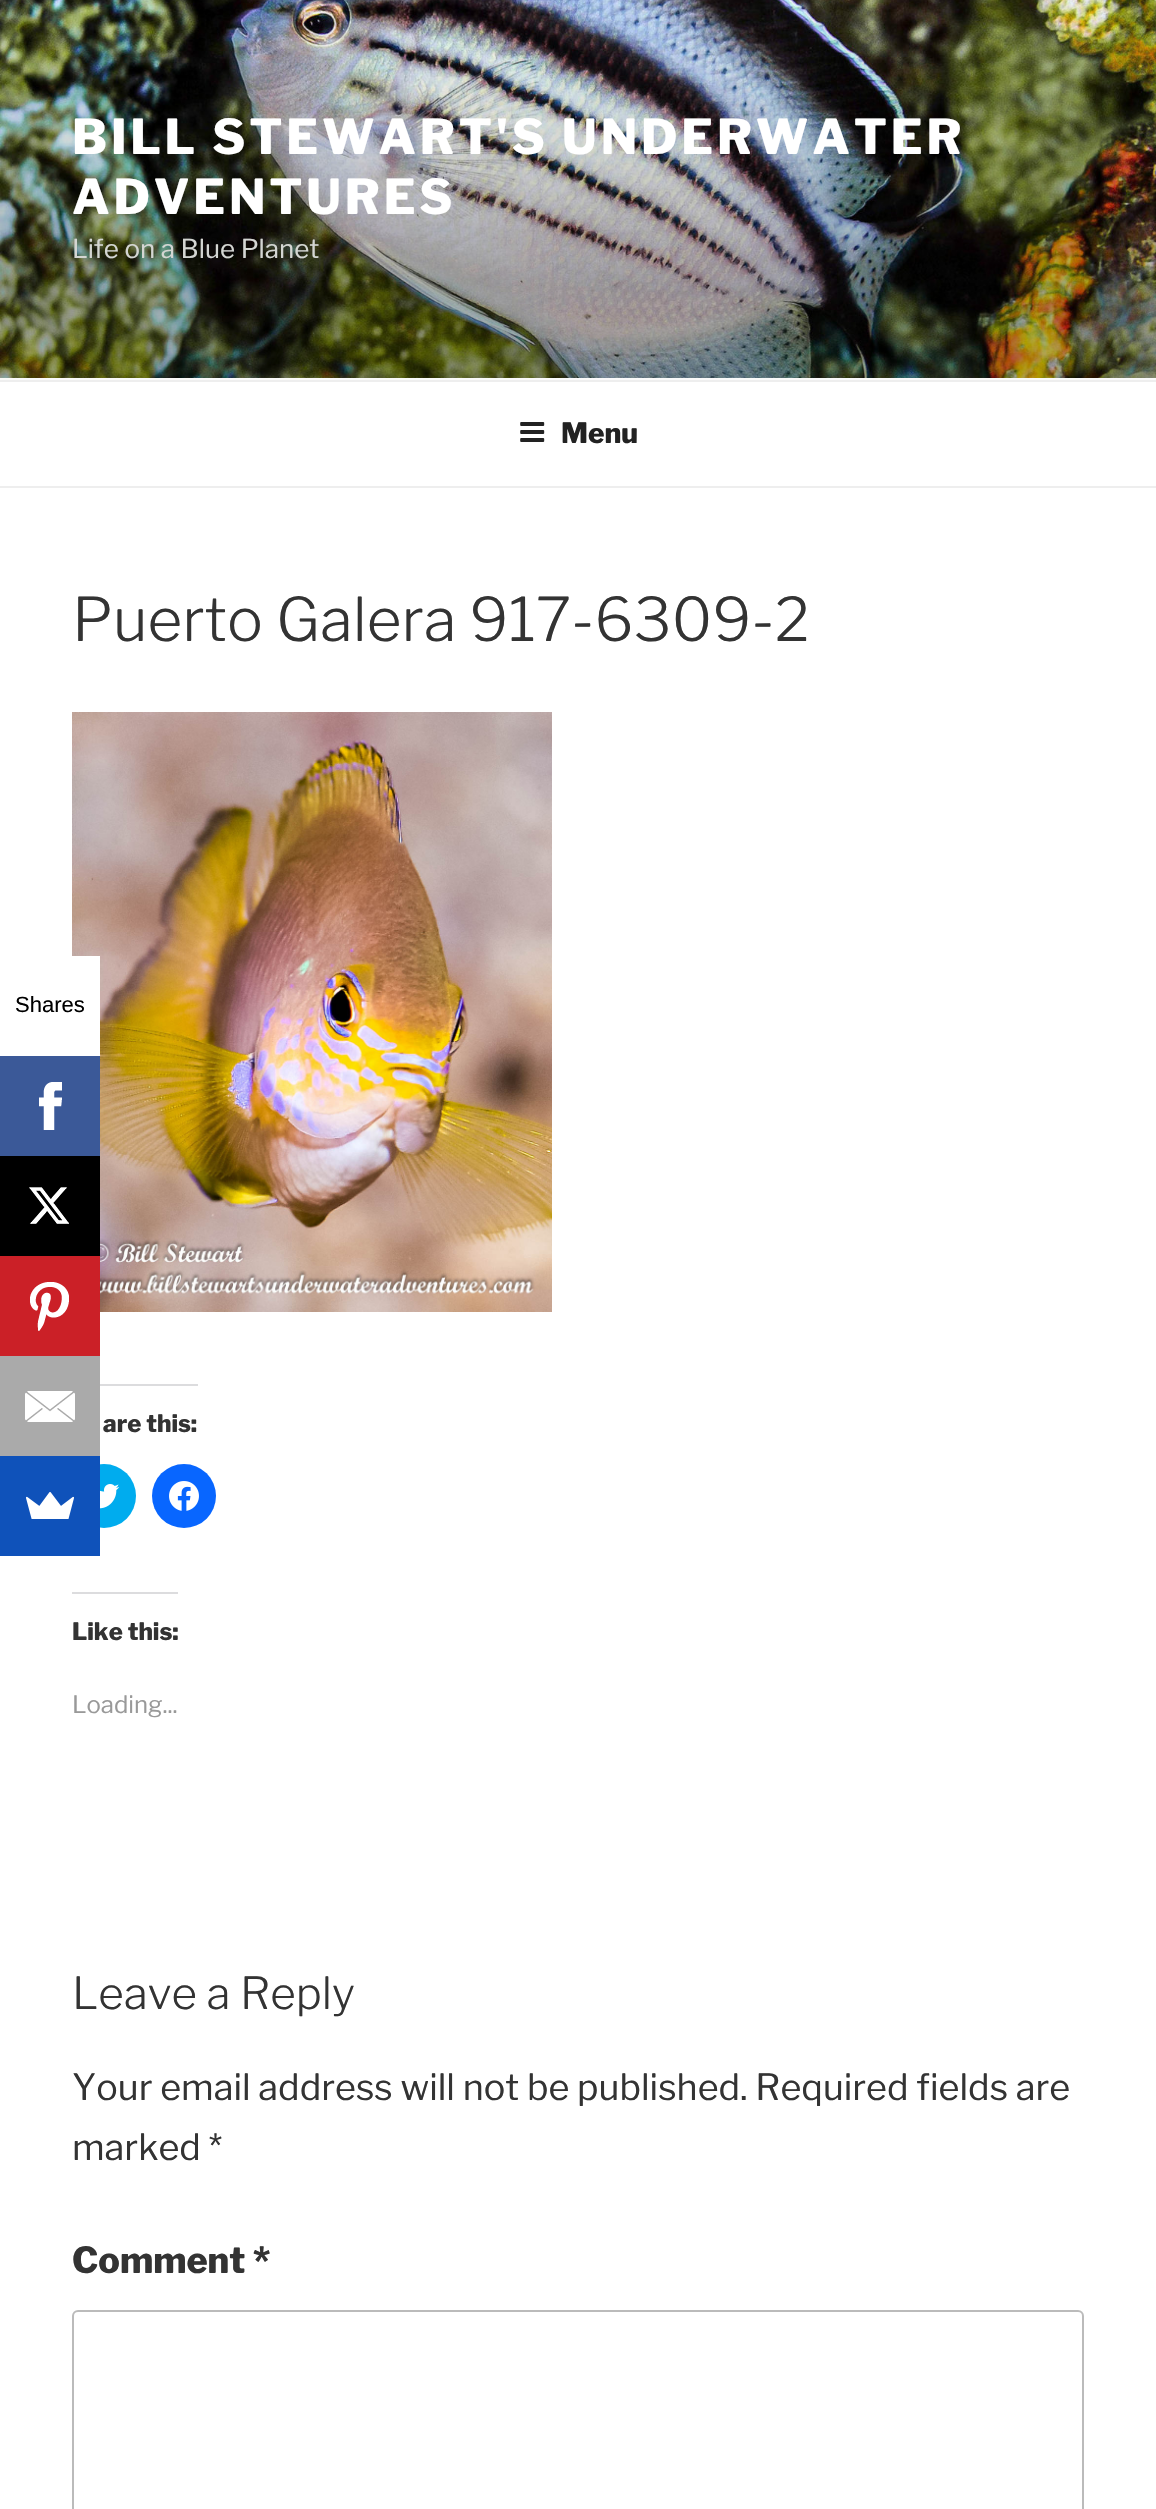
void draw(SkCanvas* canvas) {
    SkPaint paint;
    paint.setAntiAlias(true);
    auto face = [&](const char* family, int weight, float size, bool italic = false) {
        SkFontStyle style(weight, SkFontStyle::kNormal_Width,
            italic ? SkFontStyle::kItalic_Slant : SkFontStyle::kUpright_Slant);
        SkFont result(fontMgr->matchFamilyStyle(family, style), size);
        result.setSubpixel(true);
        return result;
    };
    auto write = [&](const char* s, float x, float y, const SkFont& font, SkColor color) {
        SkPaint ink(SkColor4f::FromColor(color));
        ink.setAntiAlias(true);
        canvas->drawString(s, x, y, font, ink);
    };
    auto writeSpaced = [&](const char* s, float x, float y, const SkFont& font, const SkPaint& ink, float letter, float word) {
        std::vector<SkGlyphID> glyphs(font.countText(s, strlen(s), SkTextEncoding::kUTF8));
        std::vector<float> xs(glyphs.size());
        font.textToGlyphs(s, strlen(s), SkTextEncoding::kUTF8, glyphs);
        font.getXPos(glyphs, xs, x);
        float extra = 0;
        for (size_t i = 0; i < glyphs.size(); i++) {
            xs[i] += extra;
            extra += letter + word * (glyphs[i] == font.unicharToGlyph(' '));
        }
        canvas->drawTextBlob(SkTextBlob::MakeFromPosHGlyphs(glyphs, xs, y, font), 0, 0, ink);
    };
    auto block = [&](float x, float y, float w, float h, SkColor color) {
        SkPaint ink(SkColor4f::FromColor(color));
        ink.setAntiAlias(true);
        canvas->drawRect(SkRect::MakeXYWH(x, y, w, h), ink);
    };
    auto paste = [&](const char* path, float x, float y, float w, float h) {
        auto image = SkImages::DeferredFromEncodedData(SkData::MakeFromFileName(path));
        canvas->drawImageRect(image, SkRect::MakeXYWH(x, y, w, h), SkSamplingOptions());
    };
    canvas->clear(SK_ColorWHITE);
    paste("pic8.png", 72, 712, 480, 600);
    block(72, 956, 28, 100, SK_ColorWHITE);
    auto kFont1 = face("Liberation Sans", 400, 22);
    write("Shares", 15, 1012, kFont1, SK_ColorBLACK);
    block(0, 1056, 100, 100, SkColorSetRGB(59, 89, 152));
    paste("pic1.png", 39, 1082, 23, 48);
    block(0, 1156, 100, 100, SK_ColorBLACK);
    paste("pic2.png", 29, 1187, 40, 37);
    block(0, 1256, 100, 100, SkColorSetRGB(203, 32, 39));
    paste("pic3.png", 30, 1282, 39, 49);
    block(0, 1356, 100, 100, SkColorSetRGB(170, 170, 170));
    paste("pic4.png", 25, 1391, 50, 31);
    paint.setColor(SkColorSetRGB(0, 172, 238));
    canvas->drawCircle(104, 1496, 32, paint);
    block(0, 1456, 100, 100, SkColorSetRGB(15, 82, 186));
    paste("pic5.png", 26, 1492, 48, 27);
    block(0, 378, 1156, 2, SkColorSetRGB(250, 250, 250));
    paste("pic6.png", 0, 0, 1156, 378);
    auto kFont2 = face("Libre Franklin", 800, 48);
    paint.setColor(SK_ColorWHITE);
    writeSpaced("BILL STEWART'S UNDERWATER", 72, 154, kFont2, paint, 3.8f, 0);
    writeSpaced("ADVENTURES", 72, 214, kFont2, paint, 3.8f, 0);
    auto kFont3 = face("Libre Franklin", 400, 26);
    write("Life on a Blue Planet", 72, 258, kFont3, SkColorSetRGB(212, 214, 211));
    block(0, 380, 1156, 2, SkColorSetRGB(238, 238, 238));
    block(0, 486, 1156, 2, SkColorSetRGB(238, 238, 238));
    paste("pic7.png", 520, 422, 25, 20);
    auto kFont4 = face("Libre Franklin", 800, 28);
    write("Menu", 561, 443, kFont4, SkColorSetRGB(34, 34, 34));
    auto kFont5 = face("Libre Franklin", 300, 60);
    write("Puerto Galera 917-6309-2", 72, 641, kFont5, SkColorSetRGB(51, 51, 51));
    block(100, 1384, 98, 2, SkColorSetRGB(220, 220, 222));
    auto kFont6 = face("Libre Franklin", 800, 24);
    write("are this:", 103, 1432, kFont6, SkColorSetRGB(51, 51, 51));
    paste("pic9.png", 100, 1484, 20, 25);
    paint.setColor(SkColorSetRGB(8, 102, 255));
    canvas->drawCircle(184, 1496, 32, paint);
    paste("pic10.png", 169, 1481, 30, 30);
    block(72, 1592, 106, 2, SkColorSetRGB(220, 220, 222));
    write("Like this:", 72, 1640, kFont6, SkColorSetRGB(51, 51, 51));
    auto kFont7 = face("Libre Franklin", 400, 24);
    write("Loading...", 72, 1713, kFont7, SkColorSetRGB(153, 153, 153));
    auto kFont8 = face("Libre Franklin", 300, 44);
    write("Leave a Reply", 72, 2009, kFont8, SkColorSetRGB(51, 51, 51));
    auto kFont9 = face("Libre Franklin", 400, 36);
    write("Your email address will not be published. Required fields are", 72, 2100, kFont9, SkColorSetRGB(51, 51, 51));
    write("marked *", 72, 2160, kFont9, SkColorSetRGB(51, 51, 51));
    auto kFont10 = face("Libre Franklin", 800, 36);
    write("Comment *", 72, 2273, kFont10, SkColorSetRGB(51, 51, 51));
    paint.setStyle(SkPaint::kStroke_Style);
    paint.setStrokeWidth(2);
    paint.setColor(SkColorSetRGB(187, 187, 187));
    canvas->drawRoundRect(SkRect::MakeXYWH(73, 2311, 1010, 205), 5, 5, paint);
}
